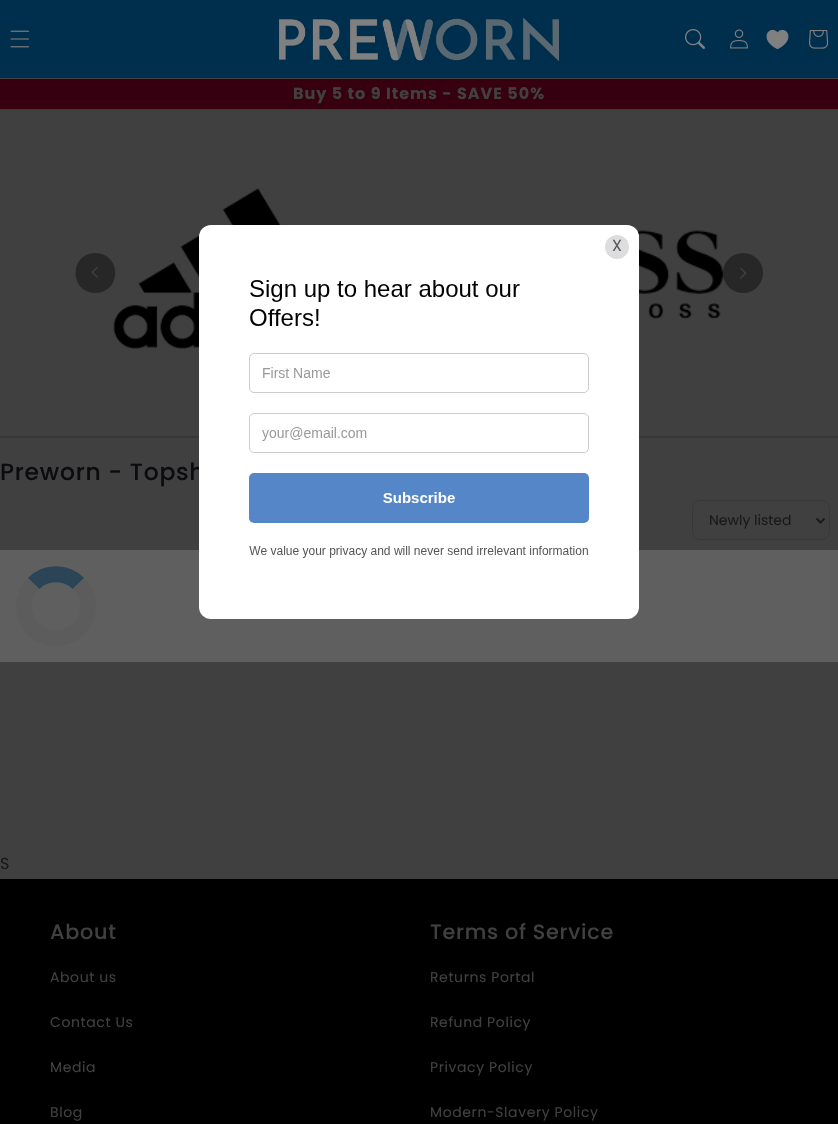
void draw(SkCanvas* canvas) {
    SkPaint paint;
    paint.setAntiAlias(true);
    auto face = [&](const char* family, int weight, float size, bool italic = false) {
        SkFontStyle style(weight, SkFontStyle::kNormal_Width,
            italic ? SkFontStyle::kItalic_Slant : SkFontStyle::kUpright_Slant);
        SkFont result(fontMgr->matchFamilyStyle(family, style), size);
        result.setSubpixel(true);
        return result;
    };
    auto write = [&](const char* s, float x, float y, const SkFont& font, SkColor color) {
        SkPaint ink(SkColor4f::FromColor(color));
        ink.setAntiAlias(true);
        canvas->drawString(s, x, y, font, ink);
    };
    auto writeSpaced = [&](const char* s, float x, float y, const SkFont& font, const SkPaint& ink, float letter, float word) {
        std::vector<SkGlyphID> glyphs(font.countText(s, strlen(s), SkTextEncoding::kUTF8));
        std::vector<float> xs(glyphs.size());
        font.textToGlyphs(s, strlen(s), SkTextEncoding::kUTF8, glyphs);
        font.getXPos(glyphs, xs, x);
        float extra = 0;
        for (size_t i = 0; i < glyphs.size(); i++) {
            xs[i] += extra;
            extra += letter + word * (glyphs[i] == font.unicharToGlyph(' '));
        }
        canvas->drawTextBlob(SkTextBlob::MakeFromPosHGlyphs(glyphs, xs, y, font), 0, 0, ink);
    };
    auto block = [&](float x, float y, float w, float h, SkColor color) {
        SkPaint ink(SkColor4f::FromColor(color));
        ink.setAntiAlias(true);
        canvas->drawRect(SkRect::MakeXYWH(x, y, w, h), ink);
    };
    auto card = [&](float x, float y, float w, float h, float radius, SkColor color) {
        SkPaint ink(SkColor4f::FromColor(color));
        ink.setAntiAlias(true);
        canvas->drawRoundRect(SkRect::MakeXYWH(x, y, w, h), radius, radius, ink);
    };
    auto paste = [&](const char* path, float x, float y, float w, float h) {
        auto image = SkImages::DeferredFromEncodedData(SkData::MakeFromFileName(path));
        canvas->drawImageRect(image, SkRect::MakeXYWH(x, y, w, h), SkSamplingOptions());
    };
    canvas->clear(SkColorSetRGB(64, 64, 64));
    block(0, 0, 838, 78, SkColorSetRGB(0, 47, 78));
    paste("pic1.png", 10, 30, 20, 18);
    paste("pic2.png", 279, 18, 280, 43);
    paste("pic3.png", 685, 29, 20, 20);
    paste("pic4.png", 730, 29, 18, 20);
    paste("pic5.png", 766, 29, 23, 21);
    paste("pic6.png", 809, 30, 20, 19);
    block(0, 109, 838, 1, SkColorSetRGB(58, 58, 58));
    block(0, 79, 838, 30, SkColorSetRGB(55, 0, 16));
    auto kFont1 = face("Poppins", 700, 16);
    paint.setColor(SkColorSetRGB(64, 64, 64));
    writeSpaced("Buy 5 to 9 Items - SAVE 50%", 293, 99, kFont1, paint, 1, 0);
    paste("pic8.png", 113, 188, 242, 161);
    paste("pic9.png", 635, 229, 89, 91);
    block(0, 436, 838, 2, SkColorSetRGB(56, 56, 56));
    auto kFont2 = face("Poppins", 500, 23.5f);
    paint.setColor(SkColorSetRGB(12, 11, 15));
    writeSpaced("Preworn - Topsh", 0, 480, kFont2, paint, 0.75f, 0);
    block(0, 550, 838, 112, SkColorSetRGB(95, 95, 95));
    card(199, 225, 440, 394, 12, SK_ColorWHITE);
    paint.setColor(SkColorSetRGB(221, 221, 221));
    canvas->drawCircle(617, 247, 9, paint);
    paint.setStyle(SkPaint::kStroke_Style);
    paint.setStrokeWidth(6);
    canvas->drawCircle(617, 247, 9, paint);
    auto kFont3 = face("Poppins", 400, 16);
    paint.setStyle(SkPaint::kFill_Style);
    paint.setColor(SkColorSetRGB(90, 87, 98));
    writeSpaced("X", 612, 251, kFont3, paint, 0.6f, 0);
    paste("pic7.png", 249, 280, 340, 278);
    block(0, 879, 838, 245, SK_ColorBLACK);
    auto kFont4 = face("Poppins", 500, 20.75f);
    paint.setColor(SkColorSetRGB(64, 64, 64));
    writeSpaced("About", 50, 939, kFont4, paint, 0.75f, 0);
    auto kFont5 = face("Poppins", 400, 14);
    writeSpaced("About us", 50, 982, kFont5, paint, 0.6f, 0);
    writeSpaced("Contact Us", 50, 1027, kFont5, paint, 0.6f, 0);
    writeSpaced("Media", 50, 1072, kFont5, paint, 0.6f, 0);
    writeSpaced("Blog", 50, 1117, kFont5, paint, 0.6f, 0);
    writeSpaced("Terms of Service", 430, 939, kFont4, paint, 0.75f, 0);
    writeSpaced("Returns Portal", 430, 982, kFont5, paint, 0.6f, 0);
    writeSpaced("Refund Policy", 430, 1027, kFont5, paint, 0.6f, 0);
    writeSpaced("Privacy Policy", 430, 1072, kFont5, paint, 0.6f, 0);
    writeSpaced("Modern-Slavery Policy", 430, 1117, kFont5, paint, 0.6f, 0);
    paint.setColor(SkColorSetRGB(39, 39, 39));
    canvas->drawPath(SkPathBuilder().moveTo(95, 293).cubicTo(69, 293, 69, 253, 95, 253).cubicTo(122, 253, 122, 293, 95, 293).close().detach(), paint);
    paint.setColor(SkColorSetRGB(64, 64, 64));
    canvas->drawPath(SkPathBuilder().moveTo(92.5f, 273).lineTo(91.5f, 272).lineTo(97.5f, 266.5f).lineTo(98, 267.5f).close().detach(), paint);
    canvas->drawPath(SkPathBuilder().moveTo(98, 277).lineTo(97.5f, 278).lineTo(91.5f, 272.5f).lineTo(92.5f, 271.5f).close().detach(), paint);
    paint.setColor(SkColorSetARGB(102, 0, 0, 0));
    canvas->drawCircle(743, 273, 20, paint);
    paint.setColor(SkColorSetRGB(64, 64, 64));
    canvas->drawPath(SkPathBuilder().moveTo(745.5f, 272.5f).lineTo(746.5f, 273.5f).lineTo(740.5f, 279).lineTo(740, 278).close().detach(), paint);
    canvas->drawPath(SkPathBuilder().moveTo(740, 268.5f).lineTo(740.5f, 267.5f).lineTo(746.5f, 273).lineTo(745.5f, 274).close().detach(), paint);
    paint.setStyle(SkPaint::kStroke_Style);
    paint.setStrokeWidth(1);
    paint.setColor(SkColorSetRGB(56, 56, 56));
    canvas->drawRoundRect(SkRect::MakeXYWH(692.5f, 500.5f, 137, 39), 7.5f, 7.5f, paint);
    paint.setStrokeWidth(2);
    paint.setColor(SkColorSetRGB(26, 26, 26));
    canvas->drawPath(SkPathBuilder().moveTo(816.5f, 518.5f).lineTo(820.5f, 522.5f).lineTo(824.5f, 518.5f).detach(), paint);
    write("Newly listed", 709, 525, kFont5, SkColorSetRGB(25, 24, 27));
    paint.setStrokeWidth(16);
    paint.setColor(SkColorSetRGB(44, 69, 86));
    canvas->drawPath(SkPathBuilder().moveTo(33.5f, 583.5f).cubicTo(45.5f, 571, 66.5f, 571, 78.5f, 583.5f).detach(), paint);
    paint.setColor(SkColorSetRGB(92, 92, 92));
    canvas->drawPath(SkPathBuilder().moveTo(78.5f, 583.5f).cubicTo(84.5f, 589.5f, 88, 597.5f, 88, 606).cubicTo(88, 644.5f, 32, 650, 24.5f, 612.5f).cubicTo(22.5f, 602, 26, 591, 33.5f, 583.5f).detach(), paint);
    paint.setStyle(SkPaint::kFill_Style);
    paint.setColor(SkColorSetRGB(25, 24, 27));
    writeSpaced("S", 0, 869, kFont3, paint, 0.6f, 0);
}
